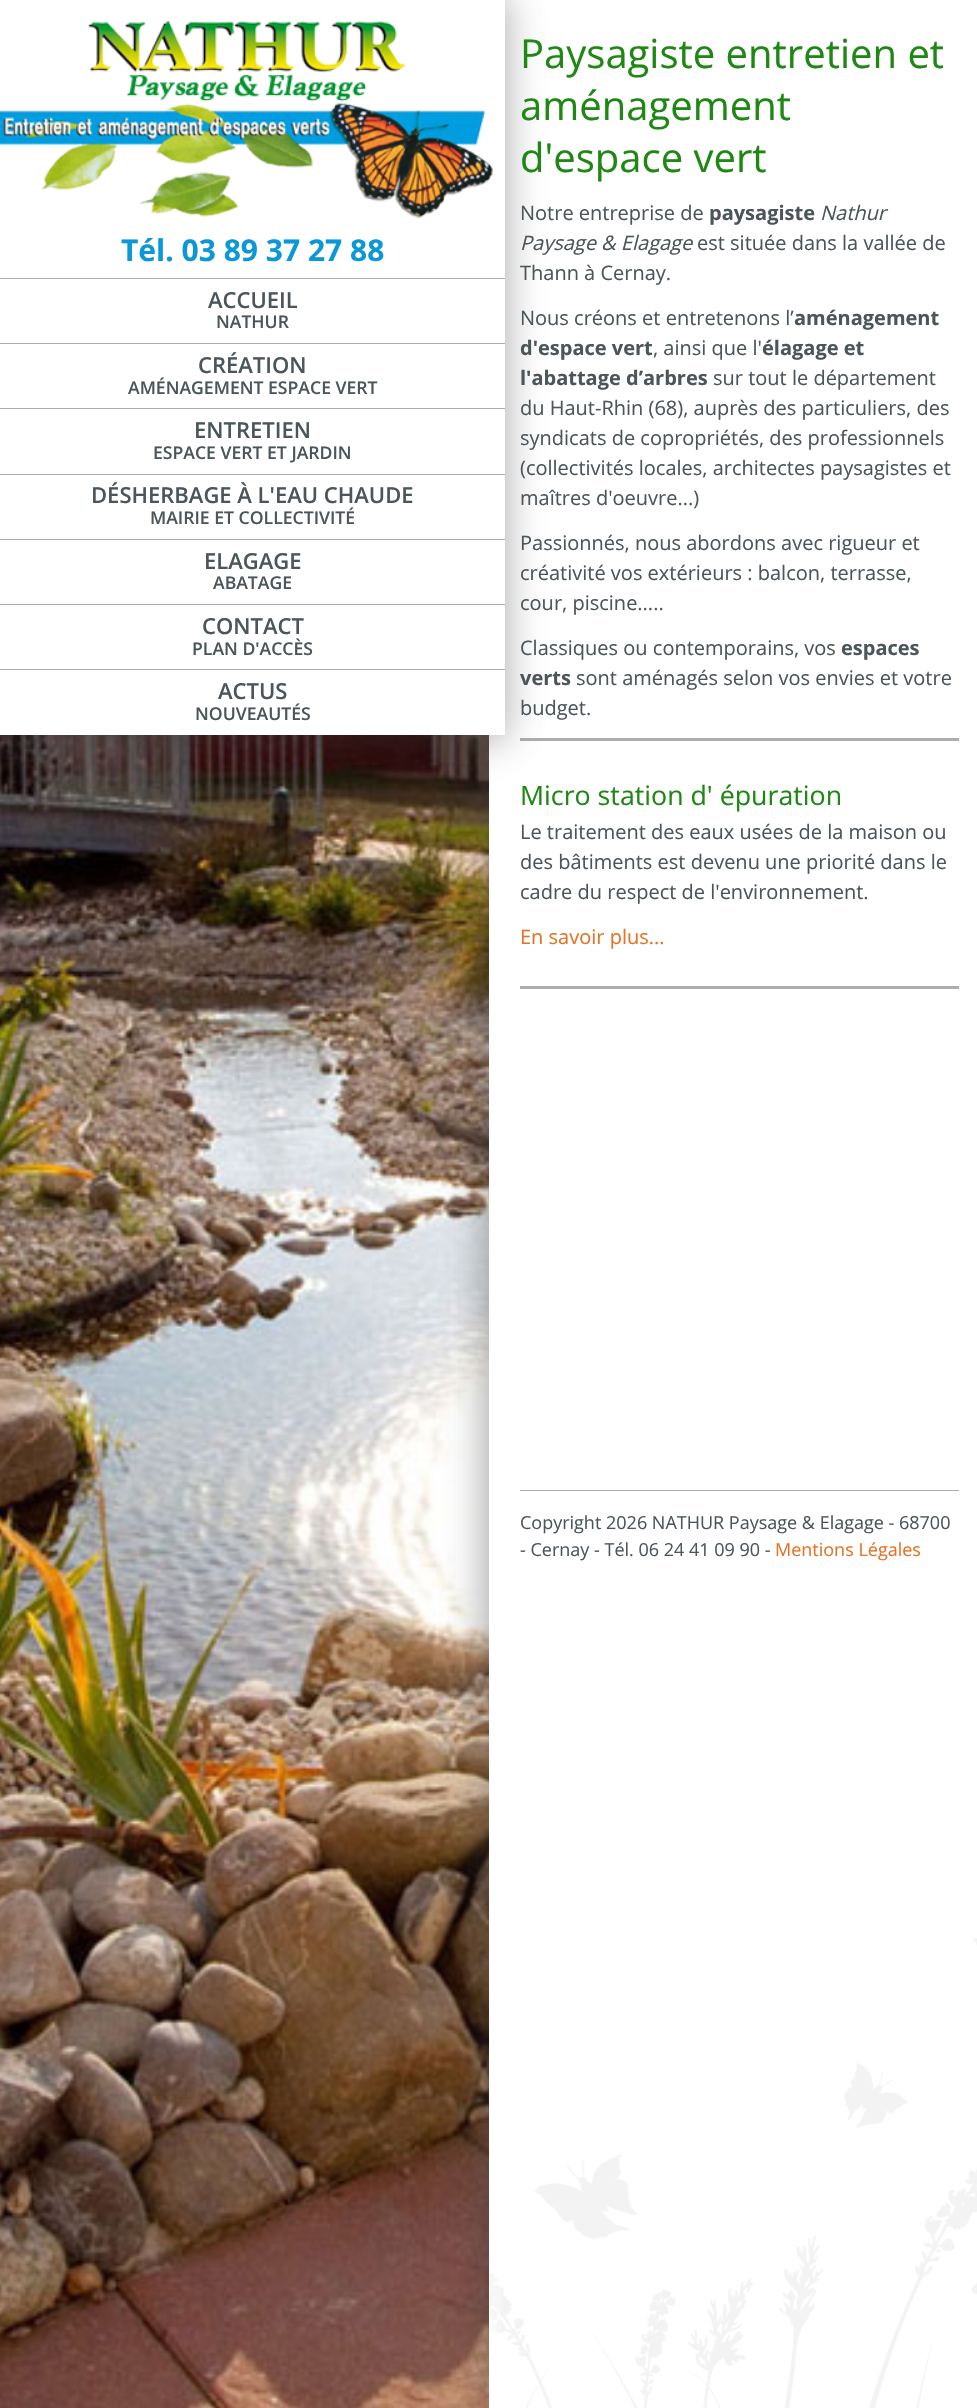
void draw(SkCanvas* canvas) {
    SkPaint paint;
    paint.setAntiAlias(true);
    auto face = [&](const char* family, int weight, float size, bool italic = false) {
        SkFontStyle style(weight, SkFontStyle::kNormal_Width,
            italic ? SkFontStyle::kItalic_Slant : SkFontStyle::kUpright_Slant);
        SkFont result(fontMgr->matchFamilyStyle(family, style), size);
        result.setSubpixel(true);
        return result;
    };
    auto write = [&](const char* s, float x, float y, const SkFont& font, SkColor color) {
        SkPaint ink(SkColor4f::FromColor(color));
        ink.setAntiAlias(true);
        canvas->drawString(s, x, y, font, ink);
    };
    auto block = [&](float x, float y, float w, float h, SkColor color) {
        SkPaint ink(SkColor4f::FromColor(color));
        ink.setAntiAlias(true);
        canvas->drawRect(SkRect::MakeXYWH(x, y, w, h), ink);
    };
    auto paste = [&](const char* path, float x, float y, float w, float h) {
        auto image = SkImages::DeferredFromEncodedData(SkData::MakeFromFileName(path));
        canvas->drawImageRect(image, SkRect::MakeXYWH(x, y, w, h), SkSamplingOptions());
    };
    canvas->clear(SK_ColorWHITE);
    paste("pic3.png", 0, 735, 489, 1673);
    paint.setColor(SkColorSetARGB(115, 61, 61, 61));
    paint.setMaskFilter(SkMaskFilter::MakeBlur(kNormal_SkBlurStyle, 19));
    canvas->drawRect(SkRect::MakeXYWH(484, 5, 489, 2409), paint);
    paint.setMaskFilter(nullptr);
    block(489, 0, 488, 2408, SK_ColorWHITE);
    block(520, 738, 439, 3, SkColorSetRGB(173, 173, 173));
    paint.setMaskFilter(SkMaskFilter::MakeBlur(kNormal_SkBlurStyle, 19));
    canvas->drawRect(SkRect::MakeXYWH(-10, -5, 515, 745), paint);
    paint.setMaskFilter(nullptr);
    block(0, 0, 505, 278, SK_ColorWHITE);
    paste("pic1.png", 0, 21, 493, 198);
    auto kFont1 = face("Open Sans", 700, 30);
    write("Tél. 03 89 37 27 88", 121, 261, kFont1, SkColorSetRGB(10, 152, 217));
    block(0, 279, 505, 64, SK_ColorWHITE);
    block(0, 278, 505, 1, SkColorSetRGB(173, 173, 173));
    auto kFont2 = face("Open Sans", 600, 22);
    write("ACCUEIL", 208, 308, kFont2, SkColorSetRGB(76, 86, 90));
    auto kFont3 = face("Open Sans", 600, 17.6f);
    write("NATHUR", 216, 328, kFont3, SkColorSetRGB(76, 86, 90));
    block(0, 344, 505, 64, SK_ColorWHITE);
    block(0, 343, 505, 1, SkColorSetRGB(173, 173, 173));
    write("CRÉATION", 198, 373, kFont2, SkColorSetRGB(76, 86, 90));
    write("AMÉNAGEMENT ESPACE VERT", 128, 394, kFont3, SkColorSetRGB(76, 86, 90));
    block(0, 409, 505, 65, SK_ColorWHITE);
    block(0, 408, 505, 1, SkColorSetRGB(173, 173, 173));
    write("ENTRETIEN", 194, 438, kFont2, SkColorSetRGB(76, 86, 90));
    write("ESPACE VERT ET JARDIN", 153, 459, kFont3, SkColorSetRGB(76, 86, 90));
    block(0, 475, 505, 64, SK_ColorWHITE);
    block(0, 474, 505, 1, SkColorSetRGB(173, 173, 173));
    write("DÉSHERBAGE À L'EAU CHAUDE", 91, 503, kFont2, SkColorSetRGB(76, 86, 90));
    write("MAIRIE ET COLLECTIVITÉ", 150, 524, kFont3, SkColorSetRGB(76, 86, 90));
    block(0, 540, 505, 64, SK_ColorWHITE);
    block(0, 539, 505, 1, SkColorSetRGB(173, 173, 173));
    write("ELAGAGE", 204, 569, kFont2, SkColorSetRGB(76, 86, 90));
    write("ABATAGE", 213, 589, kFont3, SkColorSetRGB(76, 86, 90));
    block(0, 605, 505, 64, SK_ColorWHITE);
    block(0, 604, 505, 1, SkColorSetRGB(173, 173, 173));
    write("CONTACT", 202, 634, kFont2, SkColorSetRGB(76, 86, 90));
    write("PLAN D'ACCÈS", 192, 655, kFont3, SkColorSetRGB(76, 86, 90));
    block(0, 670, 505, 65, SK_ColorWHITE);
    block(0, 669, 505, 1, SkColorSetRGB(173, 173, 173));
    write("ACTUS", 218, 699, kFont2, SkColorSetRGB(76, 86, 90));
    write("NOUVEAUTÉS", 195, 720, kFont3, SkColorSetRGB(76, 86, 90));
    paste("pic2.png", 489, 1938, 488, 470);
    block(489, 2274, 12, 58, SkColorSetARGB(77, 255, 255, 255));
    auto kFont4 = face("Open Sans", 400, 40);
    write("Paysagiste entretien et", 520, 68, kFont4, SkColorSetRGB(31, 135, 19));
    write("aménagement", 520, 120, kFont4, SkColorSetRGB(31, 135, 19));
    write("d'espace vert", 520, 172, kFont4, SkColorSetRGB(31, 135, 19));
    auto kFont5 = face("Open Sans", 400, 20);
    write("Notre entreprise de", 520, 220, kFont5, SkColorSetRGB(76, 86, 90));
    auto kFont6 = face("Open Sans", 700, 20);
    write("paysagiste", 709, 220, kFont6, SkColorSetRGB(76, 86, 90));
    auto kFont7 = face("Open Sans", 400, 20, true);
    write("Nathur", 820, 220, kFont7, SkColorSetRGB(76, 86, 90));
    write("Paysage & Elagage", 520, 250, kFont7, SkColorSetRGB(76, 86, 90));
    write("est située dans la vallée de", 697, 250, kFont5, SkColorSetRGB(76, 86, 90));
    write("Thann à Cernay.", 520, 280, kFont5, SkColorSetRGB(76, 86, 90));
    write("Nous créons et entretenons l’", 520, 325, kFont5, SkColorSetRGB(76, 86, 90));
    write("aménagement", 794, 325, kFont6, SkColorSetRGB(76, 86, 90));
    write("d'espace vert", 520, 355, kFont6, SkColorSetRGB(76, 86, 90));
    write(", ainsi que l'", 653, 355, kFont5, SkColorSetRGB(76, 86, 90));
    write("élagage et", 762, 355, kFont6, SkColorSetRGB(76, 86, 90));
    write("l'abattage d’arbres", 520, 385, kFont6, SkColorSetRGB(76, 86, 90));
    write("sur tout le département", 713, 385, kFont5, SkColorSetRGB(76, 86, 90));
    write("du Haut-Rhin (68), auprès des particuliers, des", 520, 415, kFont5, SkColorSetRGB(76, 86, 90));
    write("syndicats de copropriétés, des professionnels", 520, 445, kFont5, SkColorSetRGB(76, 86, 90));
    write("(collectivités locales, architectes paysagistes et", 520, 475, kFont5, SkColorSetRGB(76, 86, 90));
    write("maîtres d'oeuvre...)", 520, 505, kFont5, SkColorSetRGB(76, 86, 90));
    write("Passionnés, nous abordons avec rigueur et", 520, 550, kFont5, SkColorSetRGB(76, 86, 90));
    write("créativité vos extérieurs : balcon, terrasse,", 520, 580, kFont5, SkColorSetRGB(76, 86, 90));
    write("cour, piscine.....", 520, 610, kFont5, SkColorSetRGB(76, 86, 90));
    write("Classiques ou contemporains, vos", 520, 655, kFont5, SkColorSetRGB(76, 86, 90));
    write("espaces", 841, 655, kFont6, SkColorSetRGB(76, 86, 90));
    write("verts", 520, 685, kFont6, SkColorSetRGB(76, 86, 90));
    write("sont aménagés selon vos envies et votre", 576, 685, kFont5, SkColorSetRGB(76, 86, 90));
    write("budget.", 520, 715, kFont5, SkColorSetRGB(76, 86, 90));
    block(520, 986, 439, 3, SkColorSetRGB(173, 173, 173));
    auto kFont8 = face("Open Sans", 400, 26.75f);
    write("Micro station d' épuration", 520, 805, kFont8, SkColorSetRGB(31, 135, 19));
    write("Le traitement des eaux usées de la maison ou", 520, 839, kFont5, SkColorSetRGB(76, 86, 90));
    write("des bâtiments est devenu une priorité dans le", 520, 869, kFont5, SkColorSetRGB(76, 86, 90));
    write("cadre du respect de l'environnement.", 520, 899, kFont5, SkColorSetRGB(76, 86, 90));
    write("En savoir plus...", 520, 944, kFont5, SkColorSetRGB(228, 115, 35));
    block(520, 1490, 439, 1, SkColorSetRGB(173, 173, 173));
    auto kFont9 = face("Open Sans", 400, 18);
    write("Copyright 2026 NATHUR Paysage & Elagage - 68700", 520, 1529, kFont9, SkColorSetRGB(76, 86, 90));
    write("- Cernay - Tél. 06 24 41 09 90 -", 520, 1556, kFont9, SkColorSetRGB(76, 86, 90));
    write("Mentions Légales", 775, 1556, kFont9, SkColorSetRGB(228, 115, 35));
}
